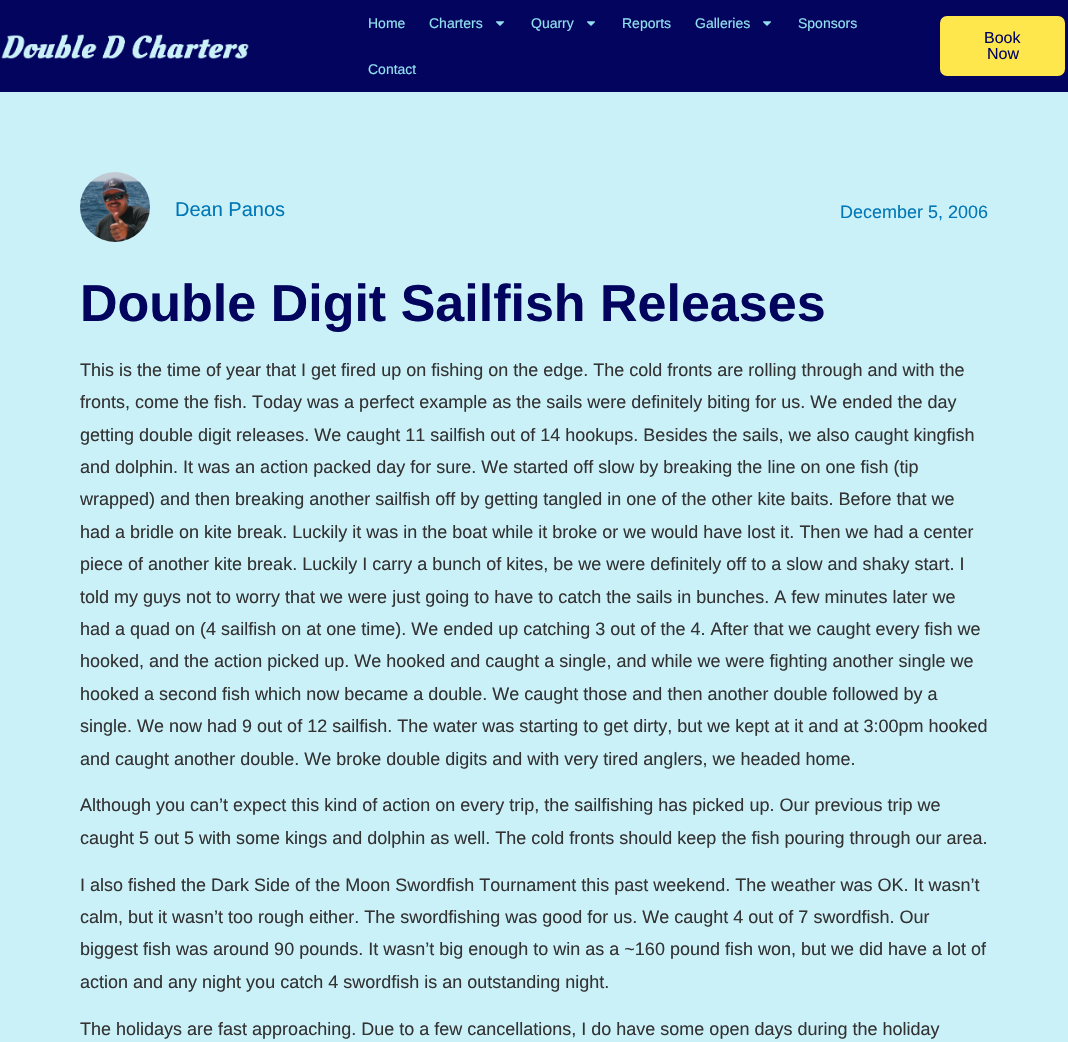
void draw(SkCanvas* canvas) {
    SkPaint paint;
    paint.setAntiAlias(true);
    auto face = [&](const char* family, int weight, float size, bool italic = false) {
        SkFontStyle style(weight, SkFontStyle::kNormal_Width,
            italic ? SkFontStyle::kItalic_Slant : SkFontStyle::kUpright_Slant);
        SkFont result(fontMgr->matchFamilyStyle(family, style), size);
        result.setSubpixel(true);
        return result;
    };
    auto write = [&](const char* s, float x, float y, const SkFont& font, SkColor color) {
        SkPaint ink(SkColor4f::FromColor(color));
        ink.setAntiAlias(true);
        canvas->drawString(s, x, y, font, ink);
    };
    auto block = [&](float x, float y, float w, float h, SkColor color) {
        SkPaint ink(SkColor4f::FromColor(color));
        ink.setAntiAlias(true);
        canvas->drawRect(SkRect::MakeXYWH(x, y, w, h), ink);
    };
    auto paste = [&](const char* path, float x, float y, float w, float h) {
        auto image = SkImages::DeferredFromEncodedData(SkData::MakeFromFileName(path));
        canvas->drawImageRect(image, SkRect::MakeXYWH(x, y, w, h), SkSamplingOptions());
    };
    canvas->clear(SkColorSetRGB(3, 4, 94));
    paste("pic1.png", 1, 34, 248, 25);
    auto kFont1 = face("Liberation Sans", 400, 14);
    write("Home", 368, 28, kFont1, SkColorSetRGB(144, 224, 239));
    write("Charters", 429, 28, kFont1, SkColorSetRGB(144, 224, 239));
    paste("pic2.png", 496, 21, 8, 5);
    write("Quarry", 531, 28, kFont1, SkColorSetRGB(144, 224, 239));
    paste("pic2.png", 587, 21, 8, 5);
    write("Reports", 622, 28, kFont1, SkColorSetRGB(144, 224, 239));
    write("Galleries", 695, 28, kFont1, SkColorSetRGB(144, 224, 239));
    paste("pic2.png", 763, 21, 8, 5);
    write("Sponsors", 798, 28, kFont1, SkColorSetRGB(144, 224, 239));
    write("Contact", 368, 74, kFont1, SkColorSetRGB(144, 224, 239));
    paint.setColor(SkColorSetRGB(253, 231, 76));
    canvas->drawRoundRect(SkRect::MakeXYWH(938.5f, 14.5f, 128, 63), 8.5f, 8.5f, paint);
    paint.setStyle(SkPaint::kStroke_Style);
    paint.setStrokeWidth(3);
    paint.setColor(SkColorSetRGB(3, 4, 94));
    canvas->drawRoundRect(SkRect::MakeXYWH(938.5f, 14.5f, 128, 63), 8.5f, 8.5f, paint);
    auto kFont2 = face("Liberation Sans", 400, 16);
    write("Book", 984, 43, kFont2, SkColorSetRGB(3, 4, 94));
    write("Now", 987, 59, kFont2, SkColorSetRGB(3, 4, 94));
    block(0, 92, 1068, 950, SkColorSetRGB(202, 240, 248));
    paste("pic3.png", 80, 172, 70, 70);
    auto kFont3 = face("Liberation Sans", 400, 20);
    write("Dean Panos", 175, 216, kFont3, SkColorSetRGB(0, 119, 182));
    auto kFont4 = face("Liberation Sans", 400, 18);
    write("December 5, 2006", 840, 218, kFont4, SkColorSetRGB(0, 119, 182));
    auto kFont5 = face("Liberation Sans", 700, 52);
    write("Double Digit Sailfish Releases", 80, 321, kFont5, SkColorSetRGB(3, 4, 94));
    write("This is the time of year that I get fired up on fishing on the edge. The cold fronts are rolling through and with the", 80, 376, kFont4, SkColorSetRGB(51, 51, 51));
    write("fronts, come the fish. Today was a perfect example as the sails were definitely biting for us. We ended the day", 80, 408, kFont4, SkColorSetRGB(51, 51, 51));
    write("getting double digit releases. We caught 11 sailfish out of 14 hookups. Besides the sails, we also caught kingfish", 80, 441, kFont4, SkColorSetRGB(51, 51, 51));
    write("and dolphin. It was an action packed day for sure. We started off slow by breaking the line on one fish (tip", 80, 473, kFont4, SkColorSetRGB(51, 51, 51));
    write("wrapped) and then breaking another sailfish off by getting tangled in one of the other kite baits. Before that we", 80, 505, kFont4, SkColorSetRGB(51, 51, 51));
    write("had a bridle on kite break. Luckily it was in the boat while it broke or we would have lost it. Then we had a center", 80, 538, kFont4, SkColorSetRGB(51, 51, 51));
    write("piece of another kite break. Luckily I carry a bunch of kites, be we were definitely off to a slow and shaky start. I", 80, 570, kFont4, SkColorSetRGB(51, 51, 51));
    write("told my guys not to worry that we were just going to have to catch the sails in bunches. A few minutes later we", 80, 603, kFont4, SkColorSetRGB(51, 51, 51));
    write("had a quad on (4 sailfish on at one time). We ended up catching 3 out of the 4. After that we caught every fish we", 80, 635, kFont4, SkColorSetRGB(51, 51, 51));
    write("hooked, and the action picked up. We hooked and caught a single, and while we were fighting another single we", 80, 667, kFont4, SkColorSetRGB(51, 51, 51));
    write("hooked a second fish which now became a double. We caught those and then another double followed by a", 80, 700, kFont4, SkColorSetRGB(51, 51, 51));
    write("single. We now had 9 out of 12 sailfish. The water was starting to get dirty, but we kept at it and at 3:00pm hooked", 80, 732, kFont4, SkColorSetRGB(51, 51, 51));
    write("and caught another double. We broke double digits and with very tired anglers, we headed home.", 80, 765, kFont4, SkColorSetRGB(51, 51, 51));
    write("Although you can’t expect this kind of action on every trip, the sailfishing has picked up. Our previous trip we", 80, 811, kFont4, SkColorSetRGB(51, 51, 51));
    write("caught 5 out 5 with some kings and dolphin as well. The cold fronts should keep the fish pouring through our area.", 80, 844, kFont4, SkColorSetRGB(51, 51, 51));
    write("I also fished the Dark Side of the Moon Swordfish Tournament this past weekend. The weather was OK. It wasn’t", 80, 891, kFont4, SkColorSetRGB(51, 51, 51));
    write("calm, but it wasn’t too rough either. The swordfishing was good for us. We caught 4 out of 7 swordfish. Our", 80, 923, kFont4, SkColorSetRGB(51, 51, 51));
    write("biggest fish was around 90 pounds. It wasn’t big enough to win as a ~160 pound fish won, but we did have a lot of", 80, 955, kFont4, SkColorSetRGB(51, 51, 51));
    write("action and any night you catch 4 swordfish is an outstanding night.", 80, 988, kFont4, SkColorSetRGB(51, 51, 51));
    write("The holidays are fast approaching. Due to a few cancellations, I do have some open days during the holiday", 80, 1035, kFont4, SkColorSetRGB(51, 51, 51));
}
